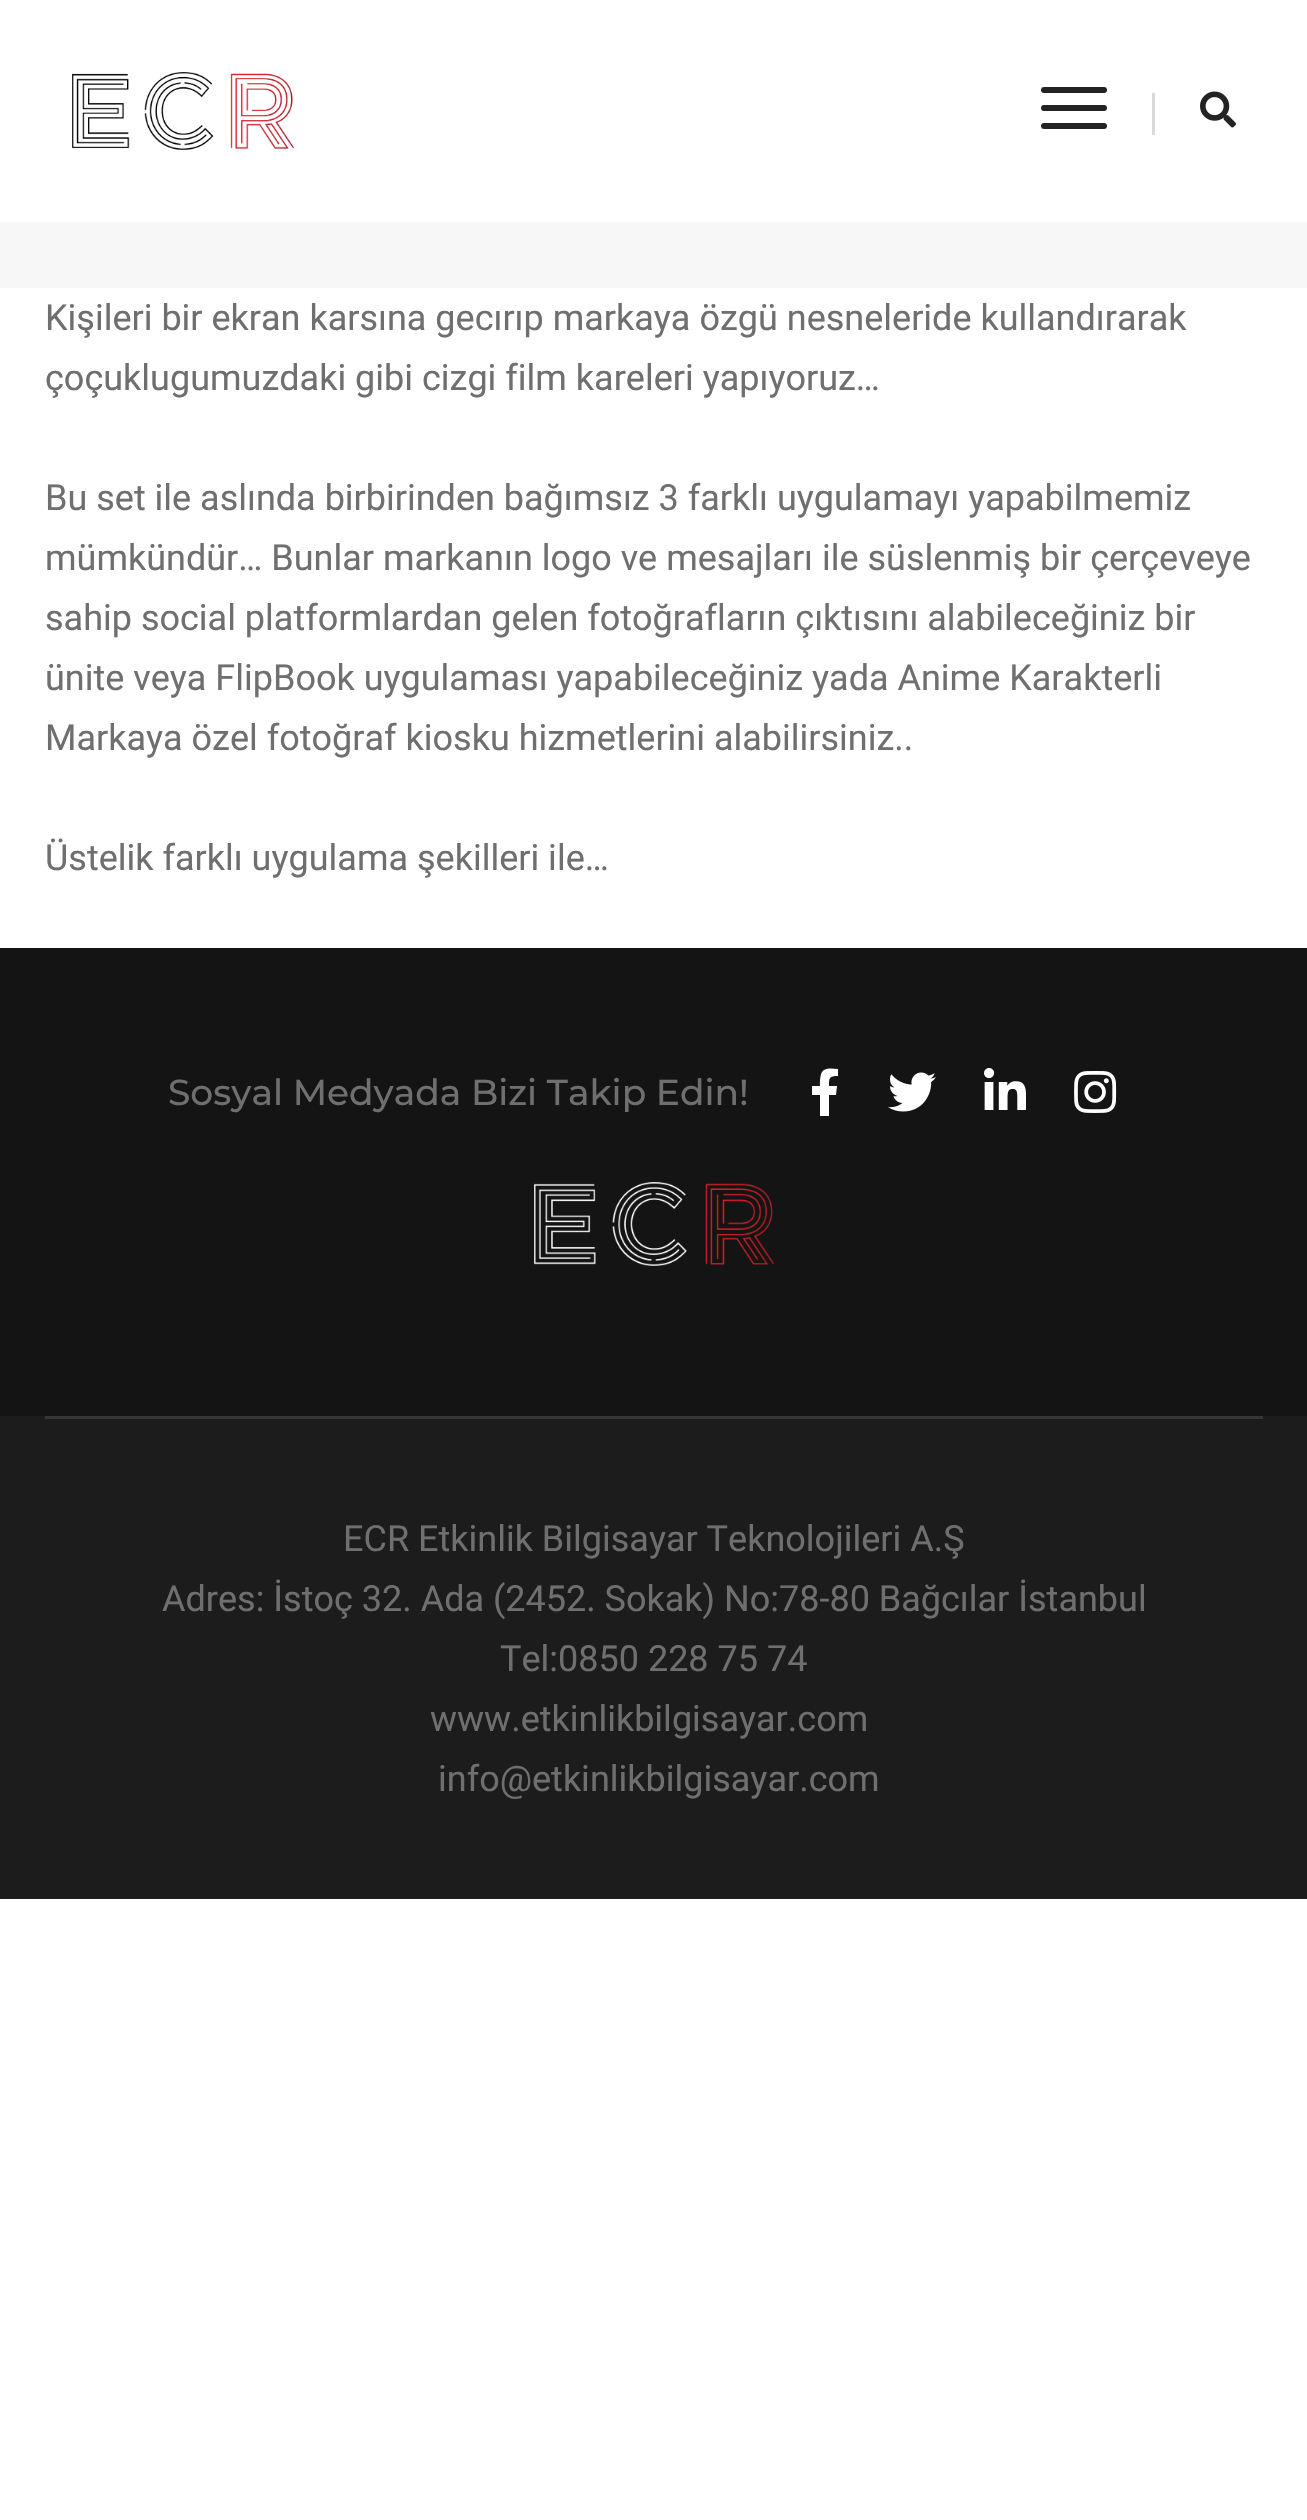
void draw(SkCanvas* canvas) {
    SkPaint paint;
    paint.setAntiAlias(true);
    auto face = [&](const char* family, int weight, float size, bool italic = false) {
        SkFontStyle style(weight, SkFontStyle::kNormal_Width,
            italic ? SkFontStyle::kItalic_Slant : SkFontStyle::kUpright_Slant);
        SkFont result(fontMgr->matchFamilyStyle(family, style), size);
        result.setSubpixel(true);
        return result;
    };
    auto write = [&](const char* s, float x, float y, const SkFont& font, SkColor color) {
        SkPaint ink(SkColor4f::FromColor(color));
        ink.setAntiAlias(true);
        canvas->drawString(s, x, y, font, ink);
    };
    auto block = [&](float x, float y, float w, float h, SkColor color) {
        SkPaint ink(SkColor4f::FromColor(color));
        ink.setAntiAlias(true);
        canvas->drawRect(SkRect::MakeXYWH(x, y, w, h), ink);
    };
    auto card = [&](float x, float y, float w, float h, float radius, SkColor color) {
        SkPaint ink(SkColor4f::FromColor(color));
        ink.setAntiAlias(true);
        canvas->drawRoundRect(SkRect::MakeXYWH(x, y, w, h), radius, radius, ink);
    };
    auto paste = [&](const char* path, float x, float y, float w, float h) {
        auto image = SkImages::DeferredFromEncodedData(SkData::MakeFromFileName(path));
        canvas->drawImageRect(image, SkRect::MakeXYWH(x, y, w, h), SkSamplingOptions());
    };
    canvas->clear(SK_ColorWHITE);
    paste("pic1.png", 72, 72, 222, 78);
    card(1041, 87, 66, 6, 3, SkColorSetRGB(35, 35, 35));
    card(1041, 105, 66, 6, 3, SkColorSetRGB(35, 35, 35));
    card(1041, 123, 66, 6, 3, SkColorSetRGB(35, 35, 35));
    block(1152, 93, 3, 42, SkColorSetRGB(217, 217, 217));
    paste("pic2.png", 1200, 91, 36, 37);
    block(0, 222, 1307, 66, SkColorSetRGB(247, 247, 247));
    auto kFont1 = face("Roboto", 400, 36);
    write("Kişileri bir ekran karsına gecırıp markaya özgü nesneleride kullandırarak", 45, 330, kFont1, SkColorSetRGB(111, 111, 111));
    write("çoçuklugumuzdaki gibi cizgi film kareleri yapıyoruz…", 45, 390, kFont1, SkColorSetRGB(111, 111, 111));
    write("Bu set ile aslında birbirinden bağımsız 3 farklı uygulamayı yapabilmemiz", 45, 510, kFont1, SkColorSetRGB(111, 111, 111));
    write("mümkündür… Bunlar markanın logo ve mesajları ile süslenmiş bir çerçeveye", 45, 570, kFont1, SkColorSetRGB(111, 111, 111));
    write("sahip social platformlardan gelen fotoğrafların çıktısını alabileceğiniz bir", 45, 630, kFont1, SkColorSetRGB(111, 111, 111));
    write("ünite veya FlipBook uygulaması yapabileceğiniz yada Anime Karakterli", 45, 690, kFont1, SkColorSetRGB(111, 111, 111));
    write("Markaya özel fotoğraf kiosku hizmetlerini alabilirsiniz..", 45, 750, kFont1, SkColorSetRGB(111, 111, 111));
    write("Üstelik farklı uygulama şekilleri ile…", 45, 870, kFont1, SkColorSetRGB(111, 111, 111));
    block(0, 1416, 1307, 483, SkColorSetRGB(28, 28, 28));
    block(0, 948, 1307, 468, SkColorSetRGB(20, 20, 20));
    auto kFont2 = face("Montserrat", 500, 36);
    write("Sosyal Medyada Bizi Takip Edin!", 168, 1105, kFont2, SkColorSetRGB(111, 111, 111));
    paint.setColor(SK_ColorWHITE);
    canvas->drawPath(SkPathBuilder().moveTo(836, 1095).lineTo(829, 1095).lineTo(829, 1116).lineTo(820, 1116).lineTo(820, 1095).lineTo(812, 1095).lineTo(812, 1086).lineTo(820, 1086).cubicTo(820, 1070, 822, 1067, 838, 1069).lineTo(838, 1076).cubicTo(829, 1076, 829, 1078, 829, 1086).lineTo(837, 1086).close().detach(), paint);
    paste("pic3.png", 888, 1072, 48, 40);
    paste("pic4.png", 984, 1068, 42, 42);
    paste("pic5.png", 1074, 1071, 43, 42);
    paste("pic6.png", 534, 1182, 240, 84);
    block(45, 1416, 1218, 3, SkColorSetRGB(54, 54, 54));
    write("ECR Etkinlik Bilgisayar Teknolojileri A.Ş", 343, 1551, kFont1, SkColorSetRGB(111, 111, 111));
    write("Adres: İstoç 32. Ada (2452. Sokak) No:78-80 Bağcılar İstanbul", 162, 1611, kFont1, SkColorSetRGB(111, 111, 111));
    write("Tel:0850 228 75 74", 500, 1671, kFont1, SkColorSetRGB(111, 111, 111));
    write("www.etkinlikbilgisayar.com", 430, 1731, kFont1, SkColorSetRGB(111, 111, 111));
    write("info@etkinlikbilgisayar.com", 438, 1791, kFont1, SkColorSetRGB(111, 111, 111));
}
